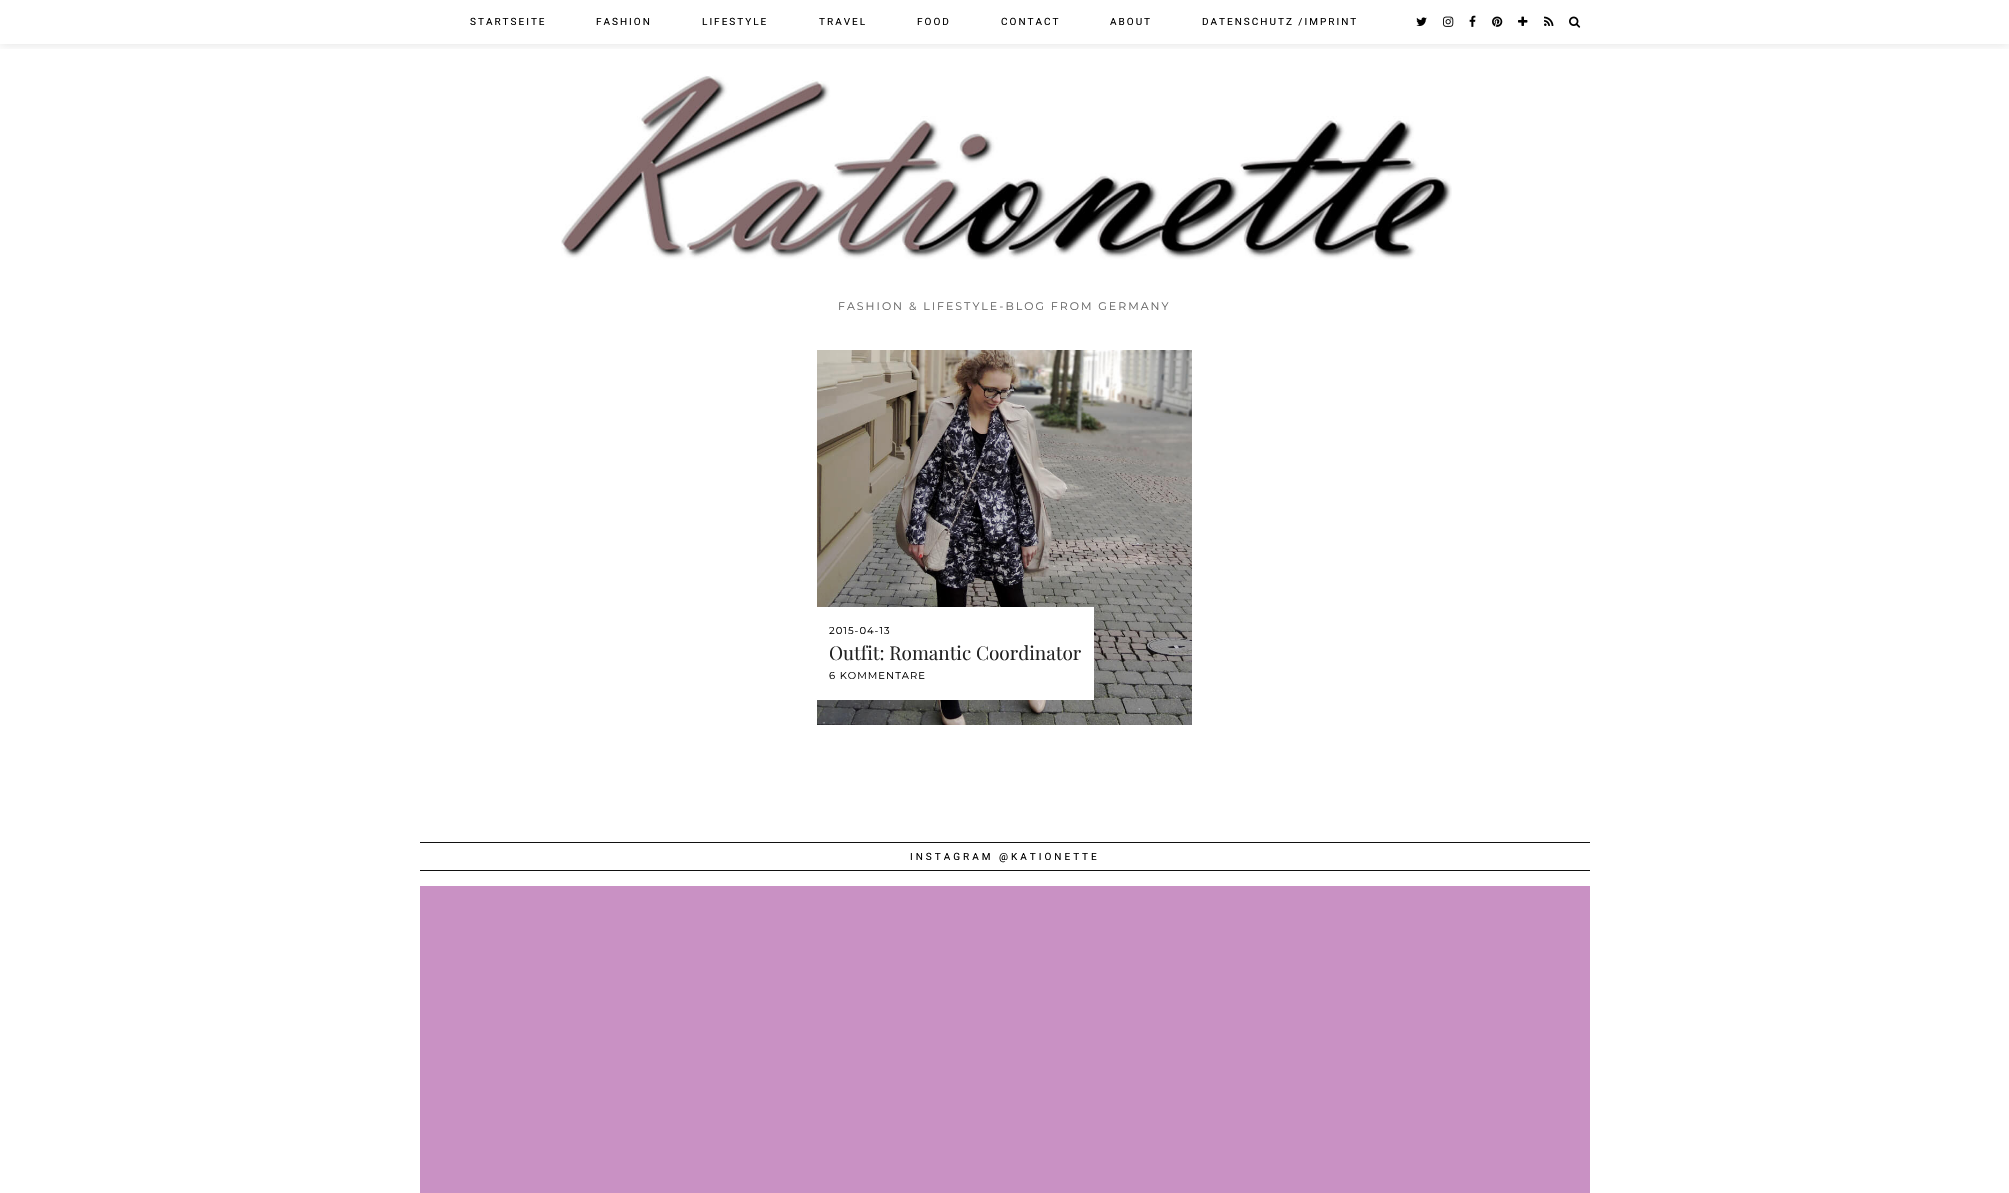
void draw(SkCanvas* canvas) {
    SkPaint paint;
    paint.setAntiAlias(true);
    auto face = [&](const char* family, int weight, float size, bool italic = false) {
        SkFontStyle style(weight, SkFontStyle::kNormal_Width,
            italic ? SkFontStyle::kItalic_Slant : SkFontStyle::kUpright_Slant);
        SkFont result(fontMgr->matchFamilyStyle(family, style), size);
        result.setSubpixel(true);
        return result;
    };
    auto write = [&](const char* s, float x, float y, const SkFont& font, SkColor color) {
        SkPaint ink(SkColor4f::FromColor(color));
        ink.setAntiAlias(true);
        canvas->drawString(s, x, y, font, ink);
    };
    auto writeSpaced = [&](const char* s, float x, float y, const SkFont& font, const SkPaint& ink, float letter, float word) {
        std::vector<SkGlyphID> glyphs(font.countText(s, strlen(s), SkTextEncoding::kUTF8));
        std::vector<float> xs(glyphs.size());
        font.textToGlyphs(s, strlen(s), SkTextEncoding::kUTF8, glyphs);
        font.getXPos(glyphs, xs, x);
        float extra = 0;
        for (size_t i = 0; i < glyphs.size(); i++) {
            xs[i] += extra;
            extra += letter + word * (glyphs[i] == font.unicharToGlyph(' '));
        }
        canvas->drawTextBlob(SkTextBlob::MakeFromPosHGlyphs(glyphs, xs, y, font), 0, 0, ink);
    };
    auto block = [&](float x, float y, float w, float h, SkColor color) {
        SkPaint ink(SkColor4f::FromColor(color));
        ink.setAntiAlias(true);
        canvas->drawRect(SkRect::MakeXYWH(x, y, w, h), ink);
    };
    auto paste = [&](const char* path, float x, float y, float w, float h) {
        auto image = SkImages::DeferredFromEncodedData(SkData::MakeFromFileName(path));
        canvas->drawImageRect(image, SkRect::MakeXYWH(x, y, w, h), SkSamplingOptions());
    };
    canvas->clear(SK_ColorWHITE);
    canvas->save();
    canvas->clipRect(SkRect::MakeXYWH(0, 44, 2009, 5));
    paint.setColor(SkColorSetARGB(26, 0, 0, 0));
    paint.setMaskFilter(SkMaskFilter::MakeBlur(kNormal_SkBlurStyle, 5));
    canvas->drawRect(SkRect::MakeXYWH(0, 1, 2009, 44), paint);
    paint.setMaskFilter(nullptr);
    canvas->restore();
    auto kFont1 = face("Roboto", 400, 10);
    paint.setColor(SK_ColorBLACK);
    writeSpaced("STARTSEITE", 470, 25, kFont1, paint, 2, 0);
    writeSpaced("FASHION", 596, 25, kFont1, paint, 2, 0);
    writeSpaced("LIFESTYLE", 702, 25, kFont1, paint, 2, 0);
    writeSpaced("TRAVEL", 819, 25, kFont1, paint, 2, 0);
    writeSpaced("FOOD", 917, 25, kFont1, paint, 2, 0);
    writeSpaced("CONTACT", 1001, 25, kFont1, paint, 2, 0);
    writeSpaced("ABOUT", 1110, 25, kFont1, paint, 2, 0);
    writeSpaced("DATENSCHUTZ /IMPRINT", 1202, 25, kFont1, paint, 2, 0);
    paste("pic1.png", 1416, 17, 11, 9);
    paste("pic2.png", 1443, 16, 11, 11);
    paste("pic3.png", 1469, 15, 7, 12);
    paste("pic4.png", 1492, 16, 11, 11);
    paste("pic5.png", 1518, 16, 10, 10);
    paste("pic6.png", 1544, 16, 10, 10);
    paste("pic7.png", 1569, 16, 12, 12);
    paste("pic8.png", 561, 75, 891, 185);
    auto kFont2 = face("Montserrat", 100, 11);
    paint.setColor(SkColorSetRGB(102, 102, 102));
    writeSpaced("FASHION & LIFESTYLE-BLOG FROM GERMANY", 838, 310, kFont2, paint, 2, 0);
    paste("pic9.png", 817, 350, 375, 375);
    block(817, 607, 277, 93, SK_ColorWHITE);
    auto kFont3 = face("Montserrat", 100, 10);
    paint.setColor(SK_ColorBLACK);
    writeSpaced("2015-04-13", 829, 634, kFont3, paint, 1, 0);
    auto kFont4 = face("Playfair Display", 400, 19);
    write("Outfit: Romantic Coordinator", 829, 660, kFont4, SkColorSetRGB(34, 34, 34));
    writeSpaced("6 KOMMENTARE", 829, 679, kFont3, paint, 1, 0);
    block(420, 842, 1170, 1, SkColorSetRGB(17, 17, 17));
    block(420, 870, 1170, 1, SkColorSetRGB(17, 17, 17));
    writeSpaced("INSTAGRAM @KATIONETTE", 910, 860, kFont1, paint, 3, 0);
    block(420, 886, 1170, 307, SkColorSetRGB(201, 145, 196));
}
